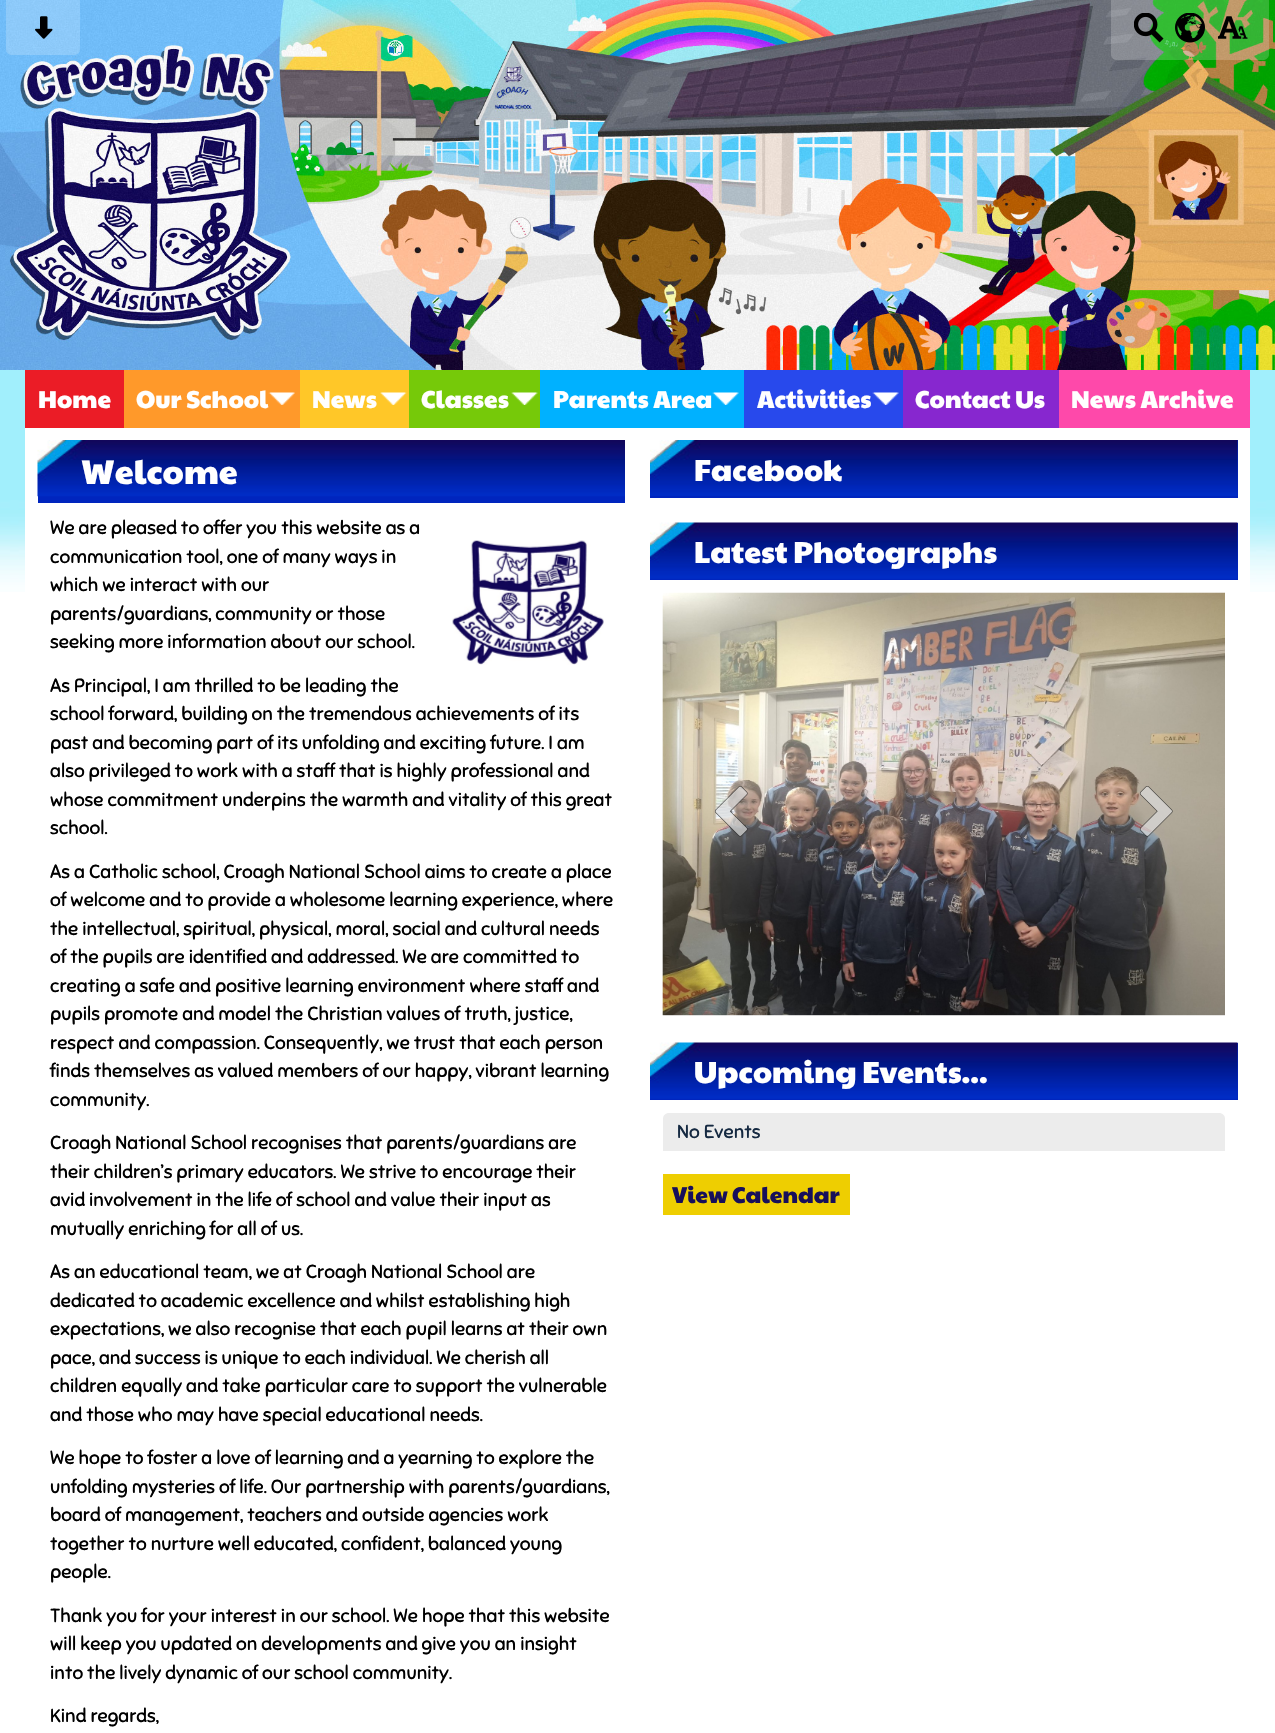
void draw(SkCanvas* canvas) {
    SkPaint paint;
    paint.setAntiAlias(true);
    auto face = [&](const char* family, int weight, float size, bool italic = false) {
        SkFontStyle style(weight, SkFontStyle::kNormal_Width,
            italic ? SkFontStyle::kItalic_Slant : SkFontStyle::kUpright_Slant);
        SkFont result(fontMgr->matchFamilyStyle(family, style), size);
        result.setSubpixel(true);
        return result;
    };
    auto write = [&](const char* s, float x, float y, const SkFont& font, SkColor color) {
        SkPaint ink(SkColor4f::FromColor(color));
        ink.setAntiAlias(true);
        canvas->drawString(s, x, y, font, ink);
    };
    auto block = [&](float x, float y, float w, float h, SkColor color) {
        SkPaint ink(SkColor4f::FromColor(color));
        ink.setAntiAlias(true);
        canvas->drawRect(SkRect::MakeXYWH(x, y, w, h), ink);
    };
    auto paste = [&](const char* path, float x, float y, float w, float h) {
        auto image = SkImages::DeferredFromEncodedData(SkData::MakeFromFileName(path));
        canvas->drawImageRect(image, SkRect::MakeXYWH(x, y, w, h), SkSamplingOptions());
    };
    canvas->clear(SK_ColorWHITE);
    paste("pic1.png", 0, 370, 1275, 222);
    paste("pic2.png", 0, 0, 1275, 370);
    paint.setColor(SkColorSetARGB(51, 255, 255, 255));
    canvas->drawPath(SkPathBuilder().moveTo(6, 0).lineTo(80, 0).lineTo(80, 49).cubicTo(80, 52.5f, 77.5f, 55, 74, 55).lineTo(12, 55).cubicTo(8.5f, 55, 6, 52.5f, 6, 49).close().detach(), paint);
    paste("pic3.png", 35, 16, 18, 23);
    canvas->drawPath(SkPathBuilder().moveTo(1111, 0).lineTo(1269, 0).lineTo(1269, 54).cubicTo(1269, 57.5f, 1266.5f, 60, 1263, 60).lineTo(1117, 60).cubicTo(1113.5f, 60, 1111, 57.5f, 1111, 54).close().detach(), paint);
    paste("pic4.png", 1134, 13, 30, 30);
    paste("pic5.png", 1175, 13, 30, 30);
    paste("pic6.png", 1218, 16, 30, 23);
    block(1059, 370, 191, 58, SkColorSetRGB(254, 73, 170));
    block(25, 370, 99, 58, SkColorSetRGB(235, 28, 38));
    auto kFont1 = face("Paytone One", 400, 24.5f);
    write("Home", 38, 408, kFont1, SK_ColorWHITE);
    block(124, 370, 176, 58, SkColorSetRGB(255, 153, 42));
    paste("pic7.png", 268, 392, 27, 13);
    write("Our School", 136, 408, kFont1, SK_ColorWHITE);
    block(300, 370, 109, 58, SkColorSetRGB(255, 199, 40));
    paste("pic8.png", 380, 392, 27, 13);
    write("News", 312, 408, kFont1, SK_ColorWHITE);
    block(409, 370, 131, 58, SkColorSetRGB(118, 201, 9));
    paste("pic9.png", 511, 392, 27, 13);
    write("Classes", 421, 408, kFont1, SK_ColorWHITE);
    block(540, 370, 204, 58, SkColorSetRGB(0, 177, 255));
    paste("pic10.png", 712, 392, 27, 13);
    write("Parents Area", 553, 408, kFont1, SK_ColorWHITE);
    block(744, 370, 159, 58, SkColorSetRGB(40, 73, 236));
    paste("pic11.png", 872, 392, 27, 13);
    write("Activities", 757, 408, kFont1, SK_ColorWHITE);
    block(903, 370, 156, 58, SkColorSetRGB(135, 39, 207));
    write("Contact Us", 915, 408, kFont1, SK_ColorWHITE);
    write("News Archive", 1071, 408, kFont1, SK_ColorWHITE);
    block(25, 428, 1225, 164, SK_ColorWHITE);
    block(38, 496, 587, 7, SkColorSetRGB(0, 37, 190));
    paste("pic12.png", 37, 440, 588, 57);
    auto kFont2 = face("Paytone One", 400, 34);
    write("Welcome", 81, 484, kFont2, SK_ColorWHITE);
    auto kFont3 = face("Sniglet", 400, 19);
    write("We are pleased to offer you this website as a", 50, 534, kFont3, SK_ColorBLACK);
    write("communication tool, one of many ways in", 50, 563, kFont3, SK_ColorBLACK);
    write("which we interact with our", 50, 591, kFont3, SK_ColorBLACK);
    write("parents/guardians, community or those", 50, 620, kFont3, SK_ColorBLACK);
    write("seeking more information about our school.", 50, 648, kFont3, SK_ColorBLACK);
    write("As Principal, I am thrilled to be leading the", 50, 692, kFont3, SK_ColorBLACK);
    write("school forward, building on the tremendous achievements of its", 50, 720, kFont3, SK_ColorBLACK);
    write("past and becoming part of its unfolding and exciting future. I am", 50, 749, kFont3, SK_ColorBLACK);
    write("also privileged to work with a staff that is highly professional and", 50, 777, kFont3, SK_ColorBLACK);
    write("whose commitment underpins the warmth and vitality of this great", 50, 806, kFont3, SK_ColorBLACK);
    write("school.", 50, 834, kFont3, SK_ColorBLACK);
    write("As a Catholic school, Croagh National School aims to create a place", 50, 878, kFont3, SK_ColorBLACK);
    write("of welcome and to provide a wholesome learning experience, where", 50, 906, kFont3, SK_ColorBLACK);
    write("the intellectual, spiritual, physical, moral, social and cultural needs", 50, 935, kFont3, SK_ColorBLACK);
    write("of the pupils are identified and addressed. We are committed to", 50, 963, kFont3, SK_ColorBLACK);
    write("creating a safe and positive learning environment where staff and", 50, 992, kFont3, SK_ColorBLACK);
    write("pupils promote and model the Christian values of truth, justice,", 50, 1020, kFont3, SK_ColorBLACK);
    write("respect and compassion. Consequently, we trust that each person", 50, 1049, kFont3, SK_ColorBLACK);
    write("finds themselves as valued members of our happy, vibrant learning", 50, 1077, kFont3, SK_ColorBLACK);
    write("community.", 50, 1106, kFont3, SK_ColorBLACK);
    write("Croagh National School recognises that parents/guardians are", 50, 1149, kFont3, SK_ColorBLACK);
    write("their children’s primary educators. We strive to encourage their", 50, 1178, kFont3, SK_ColorBLACK);
    write("avid involvement in the life of school and value their input as", 50, 1206, kFont3, SK_ColorBLACK);
    write("mutually enriching for all of us.", 50, 1235, kFont3, SK_ColorBLACK);
    write("As an educational team, we at Croagh National School are", 50, 1278, kFont3, SK_ColorBLACK);
    write("dedicated to academic excellence and whilst establishing high", 50, 1307, kFont3, SK_ColorBLACK);
    write("expectations, we also recognise that each pupil learns at their own", 50, 1335, kFont3, SK_ColorBLACK);
    write("pace, and success is unique to each individual. We cherish all", 50, 1364, kFont3, SK_ColorBLACK);
    write("children equally and take particular care to support the vulnerable", 50, 1392, kFont3, SK_ColorBLACK);
    write("and those who may have special educational needs.", 50, 1421, kFont3, SK_ColorBLACK);
    write("We hope to foster a love of learning and a yearning to explore the", 50, 1464, kFont3, SK_ColorBLACK);
    write("unfolding mysteries of life. Our partnership with parents/guardians,", 50, 1493, kFont3, SK_ColorBLACK);
    write("board of management, teachers and outside agencies work", 50, 1521, kFont3, SK_ColorBLACK);
    write("together to nurture well educated, confident, balanced young", 50, 1550, kFont3, SK_ColorBLACK);
    write("people.", 50, 1578, kFont3, SK_ColorBLACK);
    write("Thank you for your interest in our school. We hope that this website", 50, 1622, kFont3, SK_ColorBLACK);
    write("will keep you updated on developments and give you an insight", 50, 1650, kFont3, SK_ColorBLACK);
    write("into the lively dynamic of our school community.", 50, 1679, kFont3, SK_ColorBLACK);
    write("Kind regards,", 50, 1722, kFont3, SK_ColorBLACK);
    paste("pic13.png", 452, 540, 152, 125);
    block(650, 440, 588, 58, SkColorSetRGB(0, 37, 190));
    paste("pic14.png", 650, 440, 588, 56);
    auto kFont4 = face("Paytone One", 400, 30.5f);
    write("Facebook", 694, 481, kFont4, SK_ColorWHITE);
    block(650, 523, 588, 57, SkColorSetRGB(0, 37, 190));
    paste("pic15.png", 650, 522, 588, 57);
    write("Latest Photographs", 694, 563, kFont4, SK_ColorWHITE);
    paste("pic16.png", 662, 592, 563, 424);
    paste("pic17.png", 714, 786, 34, 51);
    paste("pic18.png", 1139, 786, 34, 51);
    block(650, 1043, 588, 57, SkColorSetRGB(0, 37, 190));
    paste("pic15.png", 650, 1042, 588, 57);
    write("Upcoming Events...", 694, 1083, kFont4, SK_ColorWHITE);
    paint.setColor(SkColorSetRGB(236, 236, 236));
    canvas->drawPath(SkPathBuilder().moveTo(669, 1113).lineTo(1219, 1113).cubicTo(1222.5f, 1113, 1225, 1115.5f, 1225, 1119).lineTo(1225, 1151).lineTo(663, 1151).lineTo(663, 1119).cubicTo(663, 1115.5f, 665.5f, 1113, 669, 1113).close().detach(), paint);
    write("No Events", 677, 1138, kFont3, SkColorSetRGB(21, 41, 65));
    block(663, 1174, 187, 41, SkColorSetRGB(238, 206, 1));
    auto kFont5 = face("Paytone One", 400, 22.75f);
    write("View Calendar", 672, 1203, kFont5, SkColorSetRGB(23, 15, 90));
}
